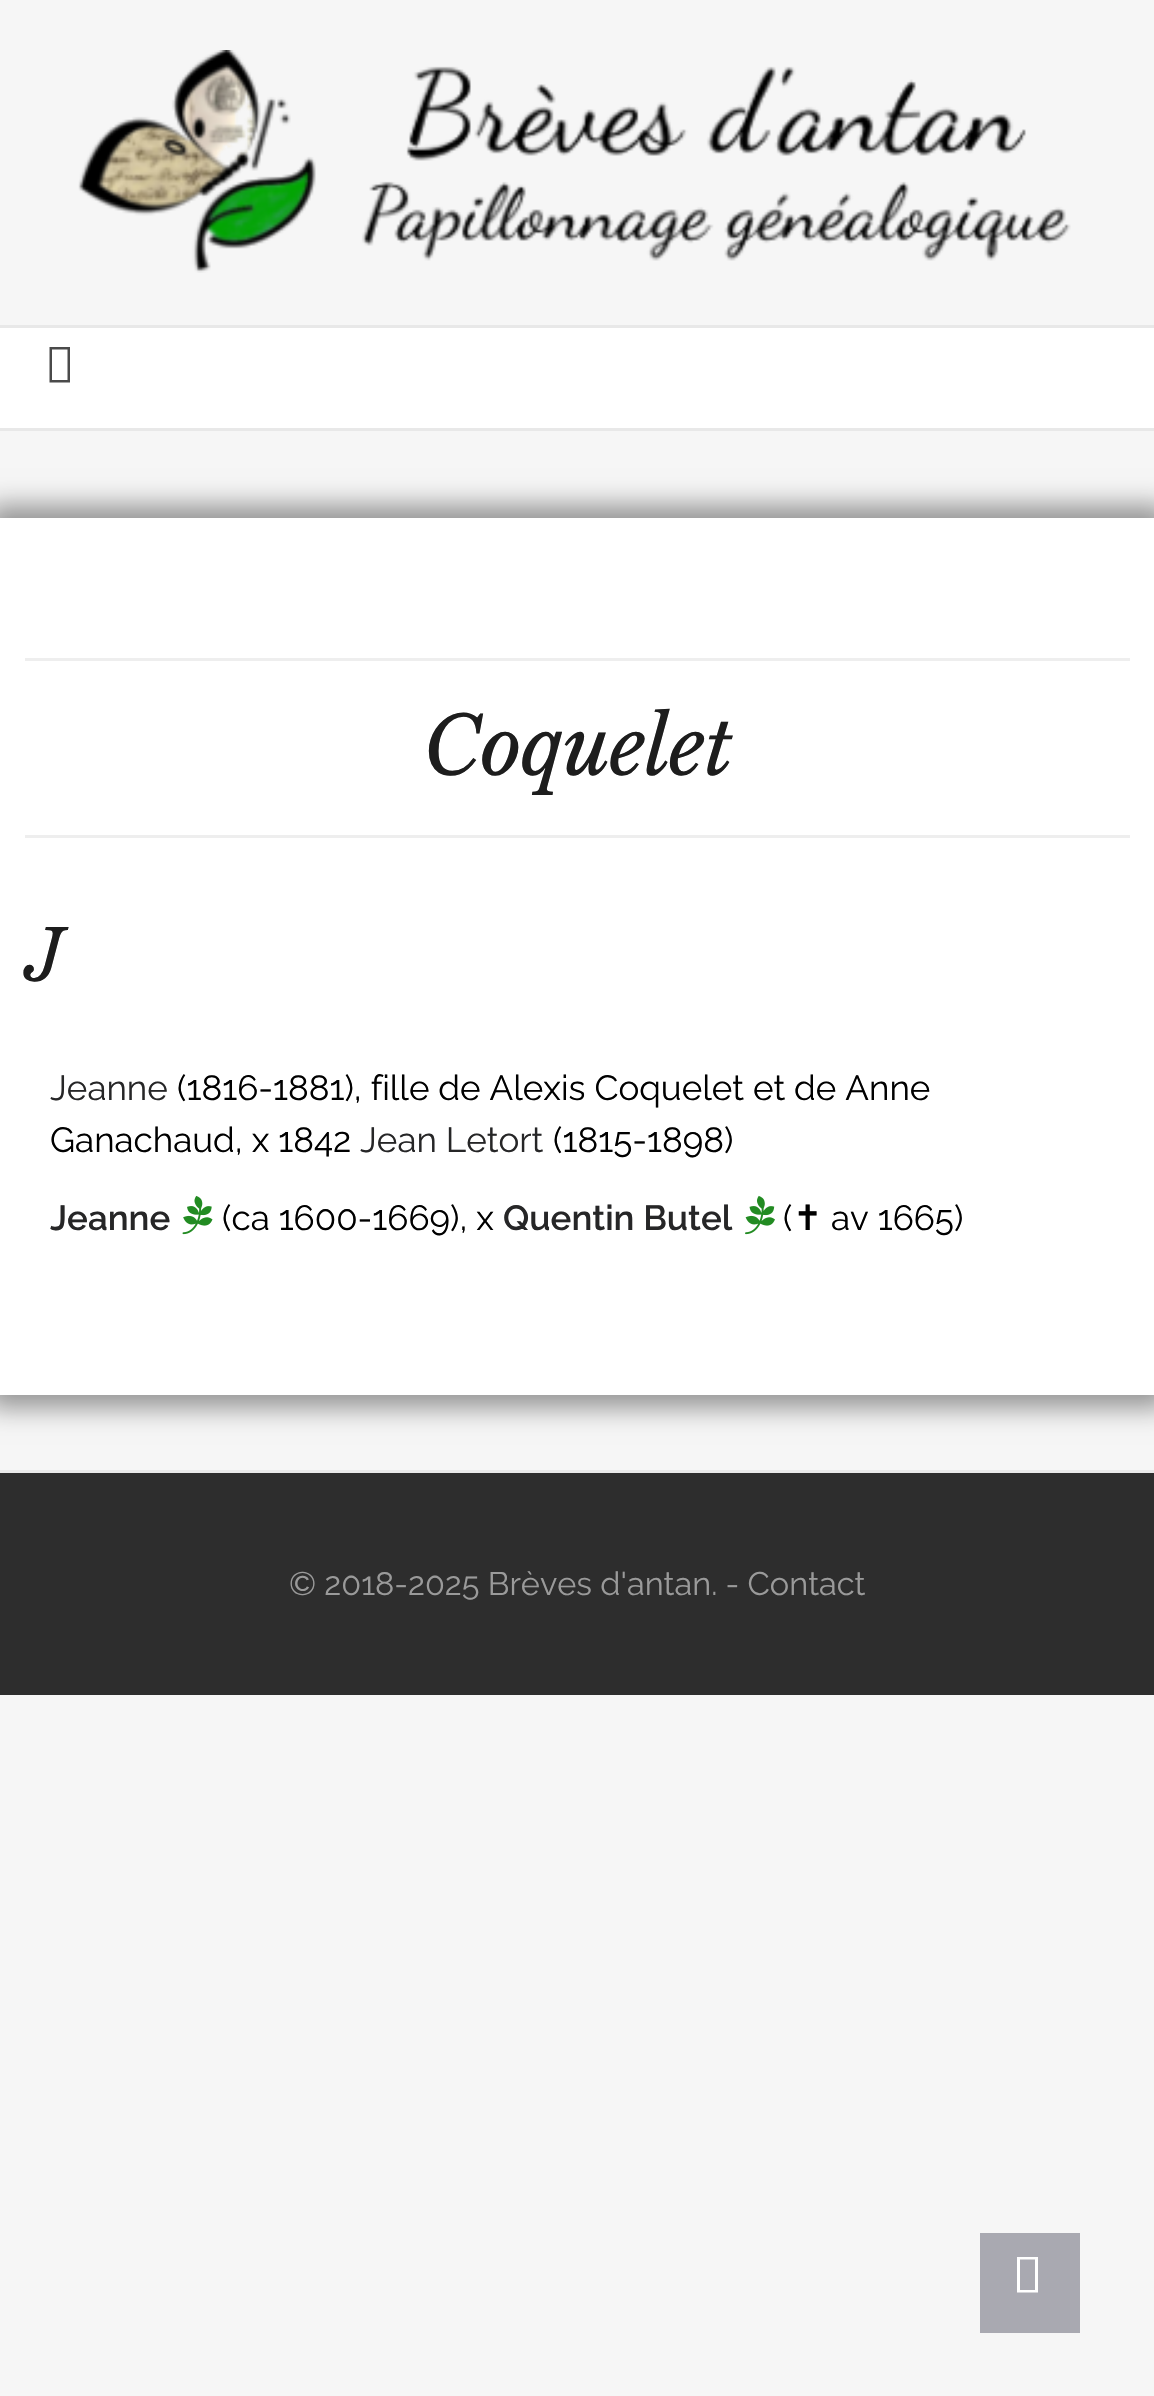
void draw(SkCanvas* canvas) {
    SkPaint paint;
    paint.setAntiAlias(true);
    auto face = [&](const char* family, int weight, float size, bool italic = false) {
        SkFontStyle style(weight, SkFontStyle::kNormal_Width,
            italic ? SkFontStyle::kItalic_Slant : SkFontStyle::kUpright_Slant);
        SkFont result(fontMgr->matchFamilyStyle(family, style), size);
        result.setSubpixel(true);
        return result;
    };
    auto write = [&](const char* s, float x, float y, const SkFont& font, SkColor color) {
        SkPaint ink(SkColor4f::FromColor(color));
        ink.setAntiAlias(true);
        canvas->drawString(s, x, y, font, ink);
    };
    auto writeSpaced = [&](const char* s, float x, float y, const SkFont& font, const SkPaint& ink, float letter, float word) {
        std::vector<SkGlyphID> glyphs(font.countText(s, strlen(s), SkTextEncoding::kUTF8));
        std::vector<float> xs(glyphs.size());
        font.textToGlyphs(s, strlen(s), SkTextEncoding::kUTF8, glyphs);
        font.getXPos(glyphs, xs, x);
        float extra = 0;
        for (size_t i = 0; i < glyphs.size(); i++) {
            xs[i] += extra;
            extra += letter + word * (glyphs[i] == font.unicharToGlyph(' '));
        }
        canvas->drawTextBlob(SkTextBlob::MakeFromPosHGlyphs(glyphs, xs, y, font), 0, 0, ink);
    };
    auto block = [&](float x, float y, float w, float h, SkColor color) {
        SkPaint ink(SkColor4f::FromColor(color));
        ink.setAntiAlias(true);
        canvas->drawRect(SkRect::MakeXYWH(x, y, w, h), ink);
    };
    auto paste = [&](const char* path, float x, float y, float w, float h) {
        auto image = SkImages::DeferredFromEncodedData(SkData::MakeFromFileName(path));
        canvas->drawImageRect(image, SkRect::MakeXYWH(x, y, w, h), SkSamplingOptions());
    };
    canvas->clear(SkColorSetRGB(246, 246, 246));
    paste("pic1.png", 78, 50, 993, 223);
    block(0, 328, 1154, 100, SK_ColorWHITE);
    block(0, 325, 1154, 3, SkColorSetRGB(232, 232, 232));
    block(0, 428, 1154, 3, SkColorSetRGB(232, 232, 232));
    paint.setColor(SkColorSetRGB(74, 74, 74));
    canvas->drawPath(SkPathBuilder().moveTo(49.5f, 382.5f).lineTo(49.5f, 347).lineTo(70, 347).lineTo(70, 382.5f).close().moveTo(52, 380).lineTo(67.5f, 380).lineTo(67.5f, 349.5f).lineTo(52, 349.5f).close().detach(), paint);
    paint.setColor(SkColorSetARGB(102, 0, 0, 0));
    paint.setMaskFilter(SkMaskFilter::MakeBlur(kNormal_SkBlurStyle, 12.5f));
    canvas->drawRect(SkRect::MakeXYWH(-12, 505, 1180, 903), paint);
    paint.setMaskFilter(nullptr);
    block(0, 518, 1154, 877, SK_ColorWHITE);
    block(25, 658, 1105, 3, SkColorSetRGB(238, 238, 238));
    auto kFont1 = face("Libre Baskerville", 400, 80, true);
    paint.setColor(SkColorSetRGB(29, 29, 29));
    writeSpaced("Coquelet", 423, 775, kFont1, paint, -1, 0);
    block(25, 835, 1105, 3, SkColorSetRGB(238, 238, 238));
    auto kFont2 = face("Libre Baskerville", 400, 70, true);
    writeSpaced("J", 25, 981, kFont2, paint, -1, 0);
    auto kFont3 = face("Raleway", 400, 35);
    write("Jeanne", 50, 1100, kFont3, SkColorSetRGB(38, 38, 39));
    write("(1816-1881), fille de Alexis Coquelet et de Anne", 177, 1100, kFont3, SK_ColorBLACK);
    write("Ganachaud, x 1842", 50, 1152, kFont3, SK_ColorBLACK);
    write("Jean Letort", 360, 1152, kFont3, SkColorSetRGB(38, 38, 39));
    write("(1815-1898)", 553, 1152, kFont3, SK_ColorBLACK);
    auto kFont4 = face("Raleway", 600, 35);
    write("Jeanne", 50, 1230, kFont4, SkColorSetRGB(38, 38, 39));
    paste("pic2.png", 182, 1195, 31, 40);
    write("(ca 1600-1669), x", 222, 1230, kFont3, SK_ColorBLACK);
    write("Quentin Butel", 503, 1230, kFont4, SkColorSetRGB(38, 38, 39));
    paste("pic3.png", 745, 1195, 30, 40);
    write("(", 783, 1230, kFont3, SK_ColorBLACK);
    auto kFont5 = face("DejaVu Sans", 400, 35);
    write("✝", 793, 1230, kFont5, SK_ColorBLACK);
    write("av 1665)", 831, 1230, kFont3, SK_ColorBLACK);
    block(0, 1470, 1154, 3, SkColorSetRGB(232, 232, 232));
    block(0, 1473, 1154, 222, SkColorSetRGB(45, 45, 45));
    auto kFont6 = face("Raleway", 400, 32.5f);
    write("© 2018-2025 Brèves d'antan. - Contact", 289, 1595, kFont6, SkColorSetRGB(154, 154, 154));
    block(980, 2233, 100, 100, SkColorSetRGB(169, 169, 177));
    paint.setColor(SK_ColorWHITE);
    canvas->drawPath(SkPathBuilder().moveTo(1017, 2292.5f).lineTo(1017, 2257).lineTo(1038, 2257).lineTo(1038, 2292.5f).close().moveTo(1020, 2290).lineTo(1035, 2290).lineTo(1035, 2259.5f).lineTo(1020, 2259.5f).close().detach(), paint);
}
